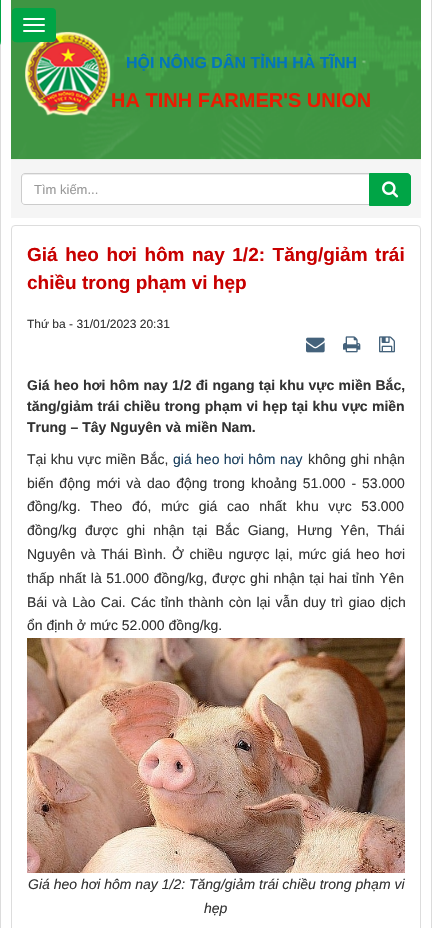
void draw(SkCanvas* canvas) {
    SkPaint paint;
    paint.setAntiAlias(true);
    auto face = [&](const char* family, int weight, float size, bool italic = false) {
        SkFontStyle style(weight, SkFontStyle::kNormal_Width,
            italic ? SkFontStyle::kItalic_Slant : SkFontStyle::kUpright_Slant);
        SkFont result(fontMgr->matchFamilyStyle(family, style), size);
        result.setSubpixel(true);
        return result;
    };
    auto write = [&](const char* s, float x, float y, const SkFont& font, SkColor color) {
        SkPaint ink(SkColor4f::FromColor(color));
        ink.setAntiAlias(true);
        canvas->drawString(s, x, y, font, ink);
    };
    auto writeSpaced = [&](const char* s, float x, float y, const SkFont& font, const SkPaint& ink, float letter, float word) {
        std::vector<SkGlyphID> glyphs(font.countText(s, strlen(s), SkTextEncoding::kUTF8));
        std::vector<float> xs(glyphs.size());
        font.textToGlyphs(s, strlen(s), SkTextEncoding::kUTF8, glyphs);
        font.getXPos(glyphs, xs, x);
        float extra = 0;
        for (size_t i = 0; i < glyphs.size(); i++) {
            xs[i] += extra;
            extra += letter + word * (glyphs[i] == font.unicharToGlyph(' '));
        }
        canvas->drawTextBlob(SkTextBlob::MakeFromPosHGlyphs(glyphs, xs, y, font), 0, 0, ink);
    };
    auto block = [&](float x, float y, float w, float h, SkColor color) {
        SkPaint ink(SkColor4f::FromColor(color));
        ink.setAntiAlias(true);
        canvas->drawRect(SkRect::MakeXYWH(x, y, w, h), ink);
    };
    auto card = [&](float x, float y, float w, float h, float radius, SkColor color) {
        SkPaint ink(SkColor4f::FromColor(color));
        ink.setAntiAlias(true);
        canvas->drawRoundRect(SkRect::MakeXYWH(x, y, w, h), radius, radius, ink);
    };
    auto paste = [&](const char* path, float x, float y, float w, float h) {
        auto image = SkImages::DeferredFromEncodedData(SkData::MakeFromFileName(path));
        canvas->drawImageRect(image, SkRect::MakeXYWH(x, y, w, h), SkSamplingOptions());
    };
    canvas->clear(SK_ColorWHITE);
    block(431, 0, 1, 928, SkColorSetRGB(220, 220, 220));
    block(0, 41, 1, 887, SkColorSetRGB(220, 220, 220));
    paint.setColor(SkColorSetRGB(0, 165, 70));
    canvas->drawPath(SkPathBuilder().moveTo(-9, 0).lineTo(1, 0).lineTo(1, 41).cubicTo(1, 46, -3, 50, -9, 50).close().detach(), paint);
    paste("pic1.png", 11, 0, 410, 160);
    card(12, 8, 44, 34, 4, SkColorSetRGB(0, 165, 70));
    paint.setStyle(SkPaint::kStroke_Style);
    paint.setStrokeWidth(1);
    canvas->drawPath(SkPathBuilder().moveTo(54.5f, 40.5f).cubicTo(52.5f, 42.5f, 47.5f, 41.5f, 46, 41.5f).lineTo(34, 41.5f).cubicTo(10, 41.5f, 12.5f, 46, 12.5f, 25).cubicTo(12.5f, 22, 11.5f, 12, 13.5f, 9.5f).detach(), paint);
    card(23, 18, 22, 2, 1, SK_ColorWHITE);
    card(23, 24, 22, 2, 1, SK_ColorWHITE);
    card(23, 30, 22, 2, 1, SK_ColorWHITE);
    auto kFont1 = face("Liberation Sans", 700, 16);
    write("HỘI NÔNG DÂN TỈNH HÀ TĨNH", 126, 68, kFont1, SkColorSetRGB(3, 117, 188));
    auto kFont2 = face("Liberation Sans", 700, 20);
    write("HA TINH FARMER'S UNION", 111, 107, kFont2, SkColorSetRGB(232, 29, 2));
    block(11, 160, 410, 58, SkColorSetRGB(245, 245, 245));
    paint.setStyle(SkPaint::kFill_Style);
    paint.setColor(SK_ColorWHITE);
    canvas->drawPath(SkPathBuilder().moveTo(25, 173).lineTo(370, 173).lineTo(370, 205).lineTo(25, 205).cubicTo(23, 205, 21, 203, 21, 201).lineTo(21, 177).cubicTo(21, 175, 23, 173, 25, 173).close().detach(), paint);
    paint.setColor(SkColorSetRGB(236, 236, 236));
    canvas->drawPath(SkPathBuilder().moveTo(25, 175).lineTo(369, 175).lineTo(369, 174).lineTo(25, 174).cubicTo(23, 174, 22, 175, 22, 177).lineTo(22, 178).cubicTo(22, 176, 23, 175, 25, 175).close().detach(), paint);
    paint.setStyle(SkPaint::kStroke_Style);
    paint.setColor(SkColorSetRGB(204, 204, 204));
    canvas->drawPath(SkPathBuilder().moveTo(25, 173.5f).lineTo(369.5f, 173.5f).lineTo(369.5f, 204.5f).lineTo(25, 204.5f).cubicTo(23, 204.5f, 21.5f, 203, 21.5f, 201).lineTo(21.5f, 177).cubicTo(21.5f, 175, 23, 173.5f, 25, 173.5f).close().detach(), paint);
    auto kFont3 = face("Liberation Sans", 400, 13);
    write("Tìm kiếm...", 34, 194, kFont3, SkColorSetRGB(153, 153, 153));
    paint.setStyle(SkPaint::kFill_Style);
    paint.setColor(SkColorSetRGB(0, 165, 70));
    canvas->drawPath(SkPathBuilder().moveTo(369.5f, 173.5f).lineTo(407, 173.5f).cubicTo(409, 173.5f, 410.5f, 175, 410.5f, 177).lineTo(410.5f, 202).cubicTo(410.5f, 204, 409, 205.5f, 407, 205.5f).lineTo(369.5f, 205.5f).close().detach(), paint);
    paint.setStyle(SkPaint::kStroke_Style);
    canvas->drawPath(SkPathBuilder().moveTo(369.5f, 173.5f).lineTo(407, 173.5f).cubicTo(409, 173.5f, 410.5f, 175, 410.5f, 177).lineTo(410.5f, 202).cubicTo(410.5f, 204, 409, 205.5f, 407, 205.5f).lineTo(369.5f, 205.5f).close().detach(), paint);
    paste("pic2.png", 382, 181, 17, 17);
    paint.setColor(SkColorSetRGB(221, 221, 221));
    canvas->drawRoundRect(SkRect::MakeXYWH(11.5f, 225.5f, 409, 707), 3.5f, 3.5f, paint);
    auto kFont4 = face("Liberation Sans", 700, 19);
    paint.setStyle(SkPaint::kFill_Style);
    paint.setColor(SkColorSetRGB(200, 0, 0));
    writeSpaced("Giá heo hơi hôm nay 1/2: Tăng/giảm trái", 27, 261, kFont4, paint, 0, 2.25f);
    write("chiều trong phạm vi hẹp", 27, 289, kFont4, SkColorSetRGB(200, 0, 0));
    auto kFont5 = face("Liberation Sans", 400, 12);
    write("Thứ ba - 31/01/2023 20:31", 27, 328, kFont5, SkColorSetRGB(51, 51, 51));
    paste("pic3.png", 306, 337, 19, 16);
    paste("pic4.png", 343, 336, 18, 17);
    paste("pic5.png", 379, 336, 16, 17);
    auto kFont6 = face("Liberation Sans", 700, 14);
    paint.setColor(SkColorSetRGB(51, 51, 51));
    writeSpaced("Giá heo hơi hôm nay 1/2 đi ngang tại khu vực miền Bắc,", 27, 390, kFont6, paint, 0, 0.4f);
    writeSpaced("tăng/giảm trái chiều trong phạm vi hẹp tại khu vực miền", 27, 411, kFont6, paint, 0, 0.5f);
    write("Trung – Tây Nguyên và miền Nam.", 27, 432, kFont6, SkColorSetRGB(51, 51, 51));
    auto kFont7 = face("Liberation Sans", 400, 14);
    writeSpaced("Tại khu vực miền Bắc,", 27, 464, kFont7, paint, 0, 0.5f);
    paint.setColor(SkColorSetRGB(26, 63, 94));
    writeSpaced("giá heo hơi hôm nay", 173, 464, kFont7, paint, 0, 0.5f);
    paint.setColor(SkColorSetRGB(51, 51, 51));
    writeSpaced("không ghi nhận", 308, 464, kFont7, paint, 0, 0.5f);
    writeSpaced("biến động mới và dao động trong khoảng 51.000 - 53.000", 27, 488, kFont7, paint, 0, 2);
    writeSpaced("đồng/kg. Theo đó, mức giá cao nhất khu vực 53.000", 27, 511, kFont7, paint, 0, 5.75f);
    writeSpaced("đồng/kg được ghi nhận tại Bắc Giang, Hưng Yên, Thái", 27, 535, kFont7, paint, 0, 4.25f);
    writeSpaced("Nguyên và Thái Bình. Ở chiều ngược lại, mức giá heo hơi", 27, 559, kFont7, paint, 0, 1.6f);
    writeSpaced("thấp nhất là 51.000 đồng/kg, được ghi nhận tại hai tỉnh Yên", 27, 583, kFont7, paint, 0, 0.75f);
    writeSpaced("Bái và Lào Cai. Các tỉnh thành còn lại vẫn duy trì giao dịch", 27, 607, kFont7, paint, 0, 1.25f);
    write("ổn định ở mức 52.000 đồng/kg.", 27, 630, kFont7, SkColorSetRGB(51, 51, 51));
    paste("pic6.png", 27, 638, 378, 235);
    auto kFont8 = face("Liberation Sans", 400, 14, true);
    write("Giá heo hơi hôm nay 1/2: Tăng/giảm trái chiều trong phạm vi", 28, 889, kFont8, SkColorSetRGB(51, 51, 51));
    write("hẹp", 204, 913, kFont8, SkColorSetRGB(51, 51, 51));
}
